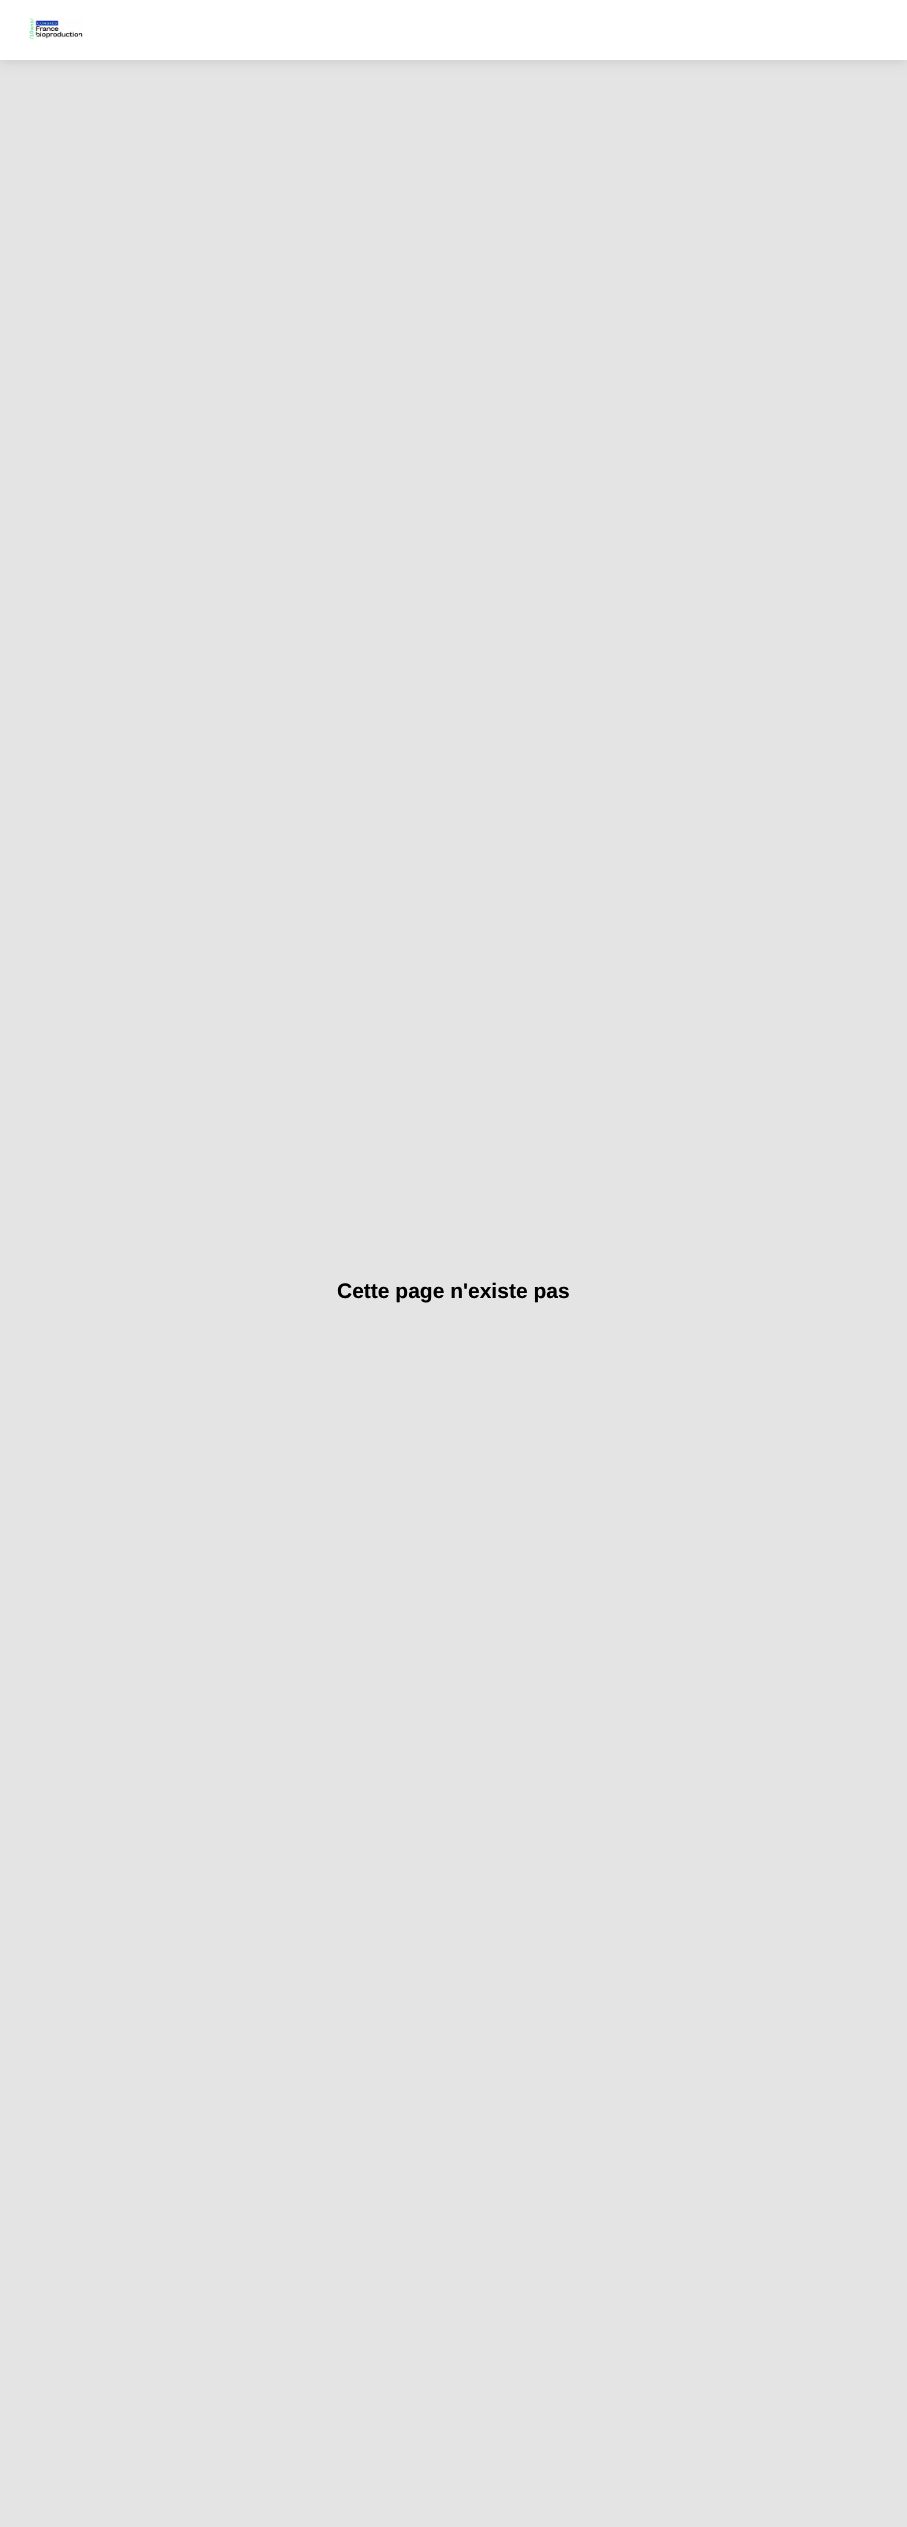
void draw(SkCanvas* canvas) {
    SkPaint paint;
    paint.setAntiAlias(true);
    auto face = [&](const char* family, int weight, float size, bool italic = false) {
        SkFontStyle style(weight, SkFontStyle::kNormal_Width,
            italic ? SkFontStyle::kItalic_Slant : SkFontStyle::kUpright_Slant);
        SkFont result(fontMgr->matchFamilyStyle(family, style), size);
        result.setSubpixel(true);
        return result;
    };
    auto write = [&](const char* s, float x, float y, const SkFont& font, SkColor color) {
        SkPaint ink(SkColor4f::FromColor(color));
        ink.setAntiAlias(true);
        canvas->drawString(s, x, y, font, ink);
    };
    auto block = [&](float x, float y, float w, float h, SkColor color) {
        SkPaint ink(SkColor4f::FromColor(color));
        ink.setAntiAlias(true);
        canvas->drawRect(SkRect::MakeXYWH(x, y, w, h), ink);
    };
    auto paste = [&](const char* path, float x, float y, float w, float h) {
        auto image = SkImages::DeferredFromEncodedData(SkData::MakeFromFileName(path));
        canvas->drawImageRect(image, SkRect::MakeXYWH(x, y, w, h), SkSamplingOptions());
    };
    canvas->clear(SkColorSetRGB(228, 228, 228));
    paint.setColor(SkColorSetARGB(26, 0, 0, 0));
    paint.setMaskFilter(SkMaskFilter::MakeBlur(kNormal_SkBlurStyle, 5));
    canvas->drawRect(SkRect::MakeXYWH(0, 2, 907, 60), paint);
    paint.setMaskFilter(nullptr);
    block(0, 0, 907, 60, SK_ColorWHITE);
    paste("pic1.png", 29, 18, 54, 22);
    auto kFont1 = face("Liberation Sans", 700, 21);
    write("Cette page n'existe pas", 337, 1298, kFont1, SK_ColorBLACK);
}
